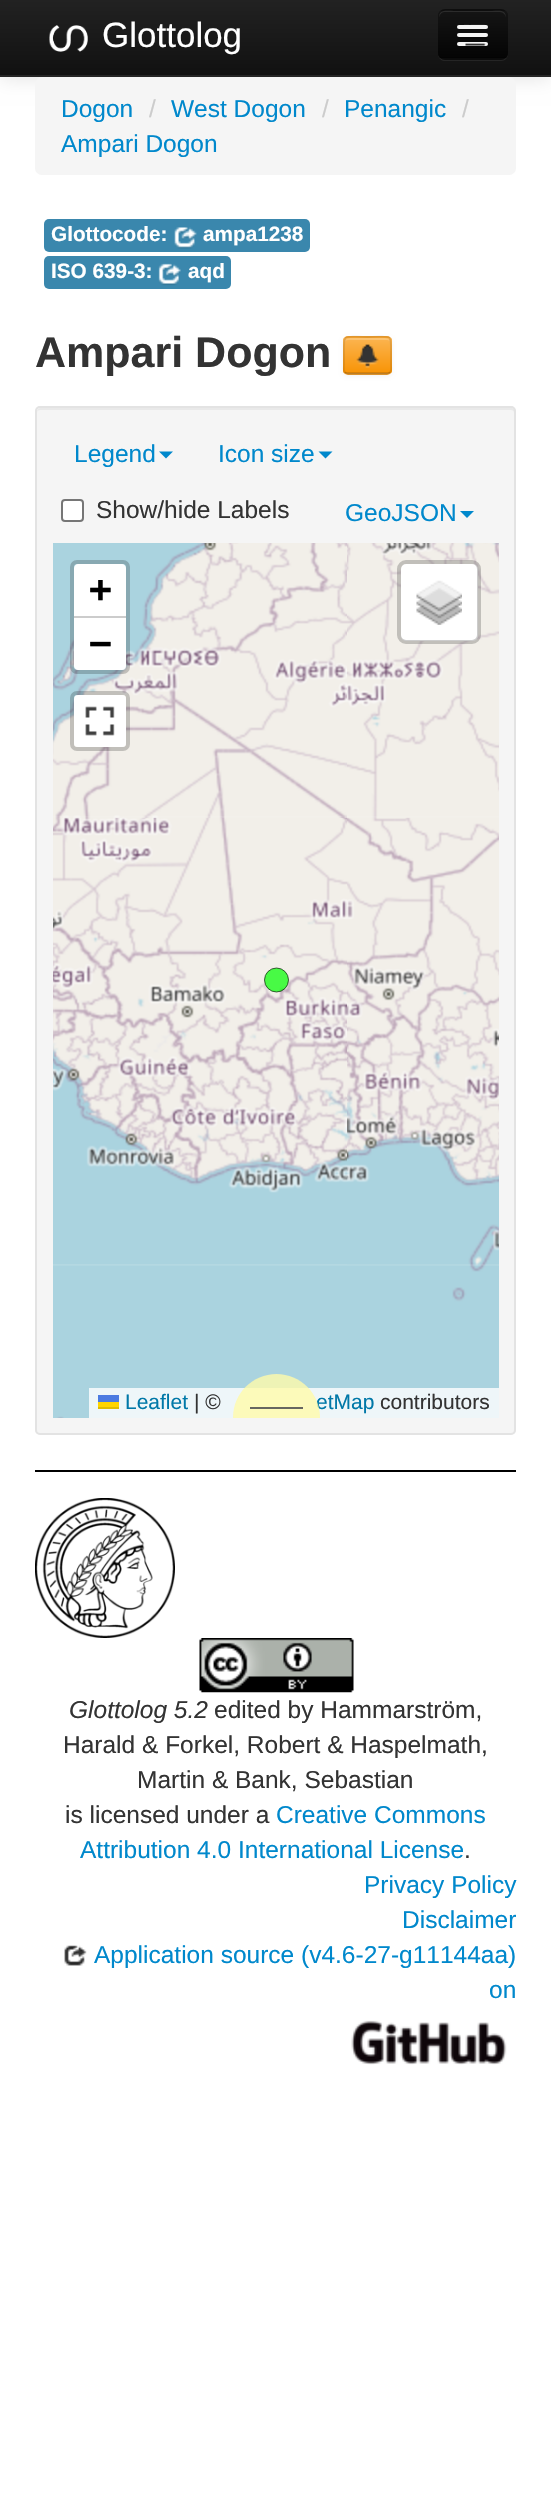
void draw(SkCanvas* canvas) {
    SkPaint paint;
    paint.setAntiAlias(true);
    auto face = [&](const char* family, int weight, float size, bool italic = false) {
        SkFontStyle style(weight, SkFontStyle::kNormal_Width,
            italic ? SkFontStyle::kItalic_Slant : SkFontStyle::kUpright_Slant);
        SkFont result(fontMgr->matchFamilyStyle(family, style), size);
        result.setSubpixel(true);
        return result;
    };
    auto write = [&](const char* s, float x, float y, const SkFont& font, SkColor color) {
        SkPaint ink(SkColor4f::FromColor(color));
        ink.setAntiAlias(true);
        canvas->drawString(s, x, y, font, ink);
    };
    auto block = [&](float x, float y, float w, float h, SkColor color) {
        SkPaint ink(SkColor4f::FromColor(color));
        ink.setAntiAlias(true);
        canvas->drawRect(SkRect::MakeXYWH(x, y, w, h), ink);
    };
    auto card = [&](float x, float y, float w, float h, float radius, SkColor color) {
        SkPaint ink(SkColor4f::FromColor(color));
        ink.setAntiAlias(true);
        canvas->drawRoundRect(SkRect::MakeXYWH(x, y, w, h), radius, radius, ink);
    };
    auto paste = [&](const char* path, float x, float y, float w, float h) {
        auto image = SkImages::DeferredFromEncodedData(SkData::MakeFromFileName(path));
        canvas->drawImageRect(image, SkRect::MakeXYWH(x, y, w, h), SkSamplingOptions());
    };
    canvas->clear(SK_ColorWHITE);
    paint.setColor(SkColorSetARGB(26, 0, 0, 0));
    paint.setMaskFilter(SkMaskFilter::MakeBlur(kNormal_SkBlurStyle, 9));
    canvas->drawRect(SkRect::MakeXYWH(0, 2, 551, 77), paint);
    paint.setMaskFilter(nullptr);
    {
        const SkColor colors[] = {SkColorSetRGB(34, 34, 34), SkColorSetRGB(17, 17, 17)};
        const float stops[] = {0, 1};
        const SkPoint ends[] = {{276, 0}, {276, 75}};
        paint.setShader(SkGradientShader::MakeLinear(ends, colors, stops, 2, SkTileMode::kClamp));
        paint.setAlpha(255);
    }
    canvas->drawRect(SkRect::MakeXYWH(0, 0, 551, 75), paint);
    block(0, 75, 551, 2, SkColorSetRGB(37, 37, 37));
    paste("pic1.png", 49, 25, 39, 27);
    auto kFont1 = face("Liberation Sans", 400, 35);
    write("Glottolog", 102, 47, kFont1, SK_ColorWHITE);
    paint.setShader(nullptr);
    paint.setColor(SkColorSetARGB(18, 255, 255, 255));
    canvas->drawPath(SkPathBuilder().moveTo(438, 55).cubicTo(439, 59, 442, 61, 445, 61).lineTo(501, 61).cubicTo(505, 61, 508, 58, 508, 54).lineTo(508, 18).lineTo(507, 15).lineTo(508, 46).cubicTo(508, 61, 505, 60, 491, 60).lineTo(454, 60).cubicTo(449, 60, 441, 61, 438, 55).close().detach(), paint);
    card(438, 9, 70, 51, 7, SkColorSetRGB(14, 14, 14));
    canvas->save();
    canvas->clipPath(SkPathBuilder().moveTo(445, 9).lineTo(501, 9).cubicTo(505, 9, 508, 12, 508, 16).lineTo(508, 53).cubicTo(508, 57, 505, 60, 501, 60).lineTo(445, 60).cubicTo(441, 60, 438, 57, 438, 53).lineTo(438, 16).cubicTo(438, 12, 441, 9, 445, 9).close().detach(), true);
    {
        const SkColor colors[] = {SkColorSetRGB(21, 21, 21), SkColorSetRGB(4, 4, 4)};
        const float stops[] = {0, 1};
        const SkPoint ends[] = {{473, 10}, {473, 58}};
        paint.setShader(SkGradientShader::MakeLinear(ends, colors, stops, 2, SkTileMode::kClamp));
        paint.setAlpha(255);
    }
    canvas->drawRect(SkRect::MakeXYWH(438, 11, 70, 47), paint);
    canvas->restore();
    paint.setShader(nullptr);
    paint.setColor(SkColorSetRGB(44, 44, 44));
    canvas->drawPath(SkPathBuilder().moveTo(444, 12).lineTo(500, 12).cubicTo(503, 12, 506, 15, 506, 18).cubicTo(506, 9, 499, 11, 492, 11).lineTo(454, 11).cubicTo(446, 11, 439, 9, 439, 18).cubicTo(439, 15, 442, 12, 444, 12).close().detach(), paint);
    paint.setStyle(SkPaint::kStroke_Style);
    paint.setStrokeWidth(1.8f);
    paint.setColor(SkColorSetARGB(64, 0, 0, 0));
    canvas->drawPath(SkPathBuilder().moveTo(505, 57).cubicTo(503.5f, 58, 502, 58.5f, 500.5f, 58.5f).lineTo(444.5f, 58.5f).cubicTo(443, 58.5f, 441.5f, 58, 440, 57).detach(), paint);
    paint.setStyle(SkPaint::kFill_Style);
    paint.setColor(SkColorSetRGB(11, 11, 11));
    canvas->drawPath(SkPathBuilder().moveTo(457, 27.5f).cubicTo(456, 31, 462.5f, 30, 463.5f, 30).lineTo(481.5f, 30).cubicTo(482.5f, 30, 489, 31, 488, 27.5f).lineTo(486.5f, 28).lineTo(458.5f, 28).close().detach(), paint);
    card(457, 25, 31, 4, 2, SkColorSetRGB(245, 245, 245));
    paste("pic2.png", 464, 24, 21, 1);
    paint.setColor(SkColorSetRGB(8, 8, 8));
    canvas->drawPath(SkPathBuilder().moveTo(457, 36).cubicTo(455.5f, 40, 462.5f, 39, 463.5f, 39).lineTo(481.5f, 39).cubicTo(482.5f, 39, 489.5f, 40, 488, 36).lineTo(486.5f, 36.5f).lineTo(458.5f, 36.5f).close().detach(), paint);
    card(457, 33, 31, 4, 2, SkColorSetRGB(245, 245, 245));
    card(457, 42, 31, 4, 2, SkColorSetRGB(245, 245, 245));
    paste("pic3.png", 465, 43, 21, 3);
    card(35, 77, 481, 98, 7, SkColorSetRGB(245, 245, 245));
    auto kFont2 = face("Liberation Sans", 400, 24.5f);
    write("Dogon", 61, 117, kFont2, SkColorSetRGB(0, 136, 204));
    write("/", 149, 117, kFont2, SkColorSetRGB(204, 204, 204));
    write("West Dogon", 171, 117, kFont2, SkColorSetRGB(0, 136, 204));
    write("/", 322, 117, kFont2, SkColorSetRGB(204, 204, 204));
    write("Penangic", 344, 117, kFont2, SkColorSetRGB(0, 136, 204));
    write("/", 462, 117, kFont2, SkColorSetRGB(204, 204, 204));
    write("Ampari Dogon", 61, 152, kFont2, SkColorSetRGB(0, 136, 204));
    card(44, 219, 266, 33, 5, SkColorSetRGB(58, 135, 173));
    auto kFont3 = face("Liberation Sans", 700, 20.75f);
    write("Glottocode:", 51, 241, kFont3, SK_ColorWHITE);
    paste("pic4.png", 174, 227, 23, 22);
    write("ampa1238", 203, 241, kFont3, SK_ColorWHITE);
    card(44, 256, 187, 33, 5, SkColorSetRGB(58, 135, 173));
    write("ISO 639-3:", 51, 278, kFont3, SK_ColorWHITE);
    paste("pic5.png", 158, 263, 23, 23);
    write("aqd", 188, 278, kFont3, SK_ColorWHITE);
    auto kFont4 = face("Liberation Sans", 700, 43);
    write("Ampari Dogon", 35, 367, kFont4, SkColorSetRGB(51, 51, 51));
    paint.setColor(SkColorSetARGB(13, 0, 0, 0));
    paint.setMaskFilter(SkMaskFilter::MakeBlur(kNormal_SkBlurStyle, 2));
    canvas->drawRoundRect(SkRect::MakeXYWH(343, 338, 49, 38), 5, 5, paint);
    paint.setMaskFilter(nullptr);
    card(343, 336, 49, 39, 5, SkColorSetRGB(250, 167, 50));
    canvas->save();
    canvas->clipPath(SkPathBuilder().moveTo(348, 336).lineTo(387, 336).cubicTo(390, 336, 392, 338, 392, 341).lineTo(392, 370).cubicTo(392, 373, 390, 375, 387, 375).lineTo(348, 375).cubicTo(345, 375, 343, 373, 343, 370).lineTo(343, 341).cubicTo(343, 338, 345, 336, 348, 336).close().detach(), true);
    {
        const SkColor colors[] = {SkColorSetRGB(251, 180, 80), SkColorSetRGB(248, 148, 6)};
        const float stops[] = {0, 1};
        const SkPoint ends[] = {{368, 338}, {368, 373}};
        paint.setShader(SkGradientShader::MakeLinear(ends, colors, stops, 2, SkTileMode::kClamp));
        paint.setAlpha(255);
    }
    canvas->drawRect(SkRect::MakeXYWH(343, 338, 49, 35), paint);
    canvas->restore();
    paint.setShader(nullptr);
    paint.setColor(SkColorSetRGB(252, 195, 113));
    canvas->drawPath(SkPathBuilder().moveTo(348, 340).lineTo(387, 340).cubicTo(389, 340, 390, 341, 390, 343).cubicTo(390, 337, 385, 338, 380, 338).lineTo(355, 338).cubicTo(350, 338, 345, 337, 345, 343).cubicTo(345, 341, 346, 340, 348, 340).close().detach(), paint);
    paint.setStyle(SkPaint::kStroke_Style);
    paint.setColor(SkColorSetARGB(64, 0, 0, 0));
    canvas->drawPath(SkPathBuilder().moveTo(390, 372.5f).cubicTo(389, 373, 388, 373.5f, 387, 373.5f).lineTo(348, 373.5f).cubicTo(347, 373.5f, 346, 373, 345, 372.5f).detach(), paint);
    paint.setColor(SkColorSetARGB(26, 0, 0, 0));
    canvas->drawPath(SkPathBuilder().moveTo(345, 372.5f).cubicTo(343, 370.5f, 344, 367, 344, 364.5f).lineTo(344, 355).cubicTo(344, 332, 342, 337, 367.5f, 337).cubicTo(393, 337, 391, 332, 391, 355).lineTo(391, 364.5f).cubicTo(391, 367, 392, 370.5f, 390, 372.5f).detach(), paint);
    paste("pic6.png", 356, 344, 23, 24);
    card(35, 406, 481, 1029, 5, SkColorSetRGB(245, 245, 245));
    paint.setStyle(SkPaint::kFill_Style);
    paint.setColor(SkColorSetRGB(233, 233, 233));
    canvas->drawPath(SkPathBuilder().moveTo(40, 410).lineTo(511, 410).cubicTo(513, 410, 514, 411, 514, 413).lineTo(514, 1432).cubicTo(515, 1431, 515, 1430, 515, 1429).lineTo(515, 412).cubicTo(515, 410, 513, 408, 511, 408).lineTo(41, 408).cubicTo(39, 408, 37, 410, 37, 412).lineTo(37, 413).cubicTo(37, 411, 38, 410, 40, 410).close().detach(), paint);
    paint.setStyle(SkPaint::kStroke_Style);
    paint.setStrokeWidth(2);
    paint.setColor(SkColorSetRGB(227, 227, 227));
    canvas->drawRoundRect(SkRect::MakeXYWH(36, 407, 479, 1027), 4, 4, paint);
    write("Legend", 74, 462, kFont2, SkColorSetRGB(0, 136, 204));
    paint.setStyle(SkPaint::kFill_Style);
    paint.setColor(SkColorSetRGB(0, 136, 204));
    canvas->drawPath(SkPathBuilder().moveTo(159, 451.5f).lineTo(173, 451.5f).lineTo(166, 458.5f).close().detach(), paint);
    write("Icon size", 218, 462, kFont2, SkColorSetRGB(0, 136, 204));
    canvas->drawPath(SkPathBuilder().moveTo(318.5f, 451.5f).lineTo(332.5f, 451.5f).lineTo(325.5f, 458.5f).close().detach(), paint);
    paint.setColor(SK_ColorWHITE);
    canvas->drawRoundRect(SkRect::MakeXYWH(62, 500, 21, 21), 3, 3, paint);
    paint.setStyle(SkPaint::kStroke_Style);
    paint.setColor(SkColorSetRGB(118, 118, 118));
    canvas->drawRoundRect(SkRect::MakeXYWH(62, 500, 21, 21), 3, 3, paint);
    write("Show/hide Labels", 96, 518, kFont2, SkColorSetRGB(51, 51, 51));
    write("GeoJSON", 345, 521, kFont2, SkColorSetRGB(0, 136, 204));
    paint.setStyle(SkPaint::kFill_Style);
    paint.setColor(SkColorSetRGB(0, 136, 204));
    canvas->drawPath(SkPathBuilder().moveTo(460, 511).lineTo(474, 511).lineTo(467, 518).close().detach(), paint);
    paste("pic9.png", 53, 816, 294, 450);
    paste("pic7.png", 53, 543, 294, 275);
    paste("pic10.png", 347, 817, 152, 449);
    paste("pic8.png", 347, 543, 152, 275);
    paste("pic11.png", 53, 1265, 294, 153);
    paste("pic12.png", 347, 1264, 152, 124);
    paint.setColor(SkColorSetARGB(179, 0, 255, 0));
    canvas->drawCircle(276.5f, 980, 12, paint);
    paint.setStyle(SkPaint::kStroke_Style);
    paint.setStrokeWidth(0.9f);
    paint.setColor(SkColorSetARGB(179, 0, 0, 0));
    canvas->drawCircle(276.5f, 980, 12, paint);
    paint.setStrokeWidth(4);
    paint.setColor(SkColorSetARGB(51, 0, 0, 0));
    canvas->drawRoundRect(SkRect::MakeXYWH(72, 562, 56, 110), 5, 5, paint);
    paint.setStyle(SkPaint::kFill_Style);
    paint.setColor(SK_ColorWHITE);
    canvas->drawPath(SkPathBuilder().moveTo(78, 564).lineTo(122, 564).cubicTo(124, 564, 126, 566, 126, 568).lineTo(126, 618).lineTo(74, 618).lineTo(74, 568).cubicTo(74, 566, 76, 564, 78, 564).close().detach(), paint);
    block(74, 616, 52, 2, SkColorSetRGB(204, 204, 204));
    auto kFont5 = face("DejaVu Sans Mono", 700, 38);
    write("+", 89, 602, kFont5, SK_ColorBLACK);
    canvas->drawPath(SkPathBuilder().moveTo(74, 618).lineTo(126, 618).lineTo(126, 666).cubicTo(126, 668, 124, 670, 122, 670).lineTo(78, 670).cubicTo(76, 670, 74, 668, 74, 666).close().detach(), paint);
    write("−", 89, 656, kFont5, SK_ColorBLACK);
    paint.setStyle(SkPaint::kStroke_Style);
    paint.setColor(SkColorSetARGB(51, 0, 0, 0));
    canvas->drawRoundRect(SkRect::MakeXYWH(72, 693, 56, 56), 5, 5, paint);
    card(74, 695, 52, 52, 4, SK_ColorWHITE);
    paste("pic13.png", 85, 706, 30, 30);
    card(401, 564, 77, 77, 5, SK_ColorWHITE);
    canvas->drawRoundRect(SkRect::MakeXYWH(399, 562, 80, 80), 7, 7, paint);
    paste("pic14.png", 416, 580, 46, 45);
    block(89, 1388, 410, 30, SkColorSetRGB(238, 246, 249));
    auto kFont6 = face("Liberation Sans", 400, 21);
    write("etMap", 316, 1409, kFont6, SkColorSetRGB(0, 120, 168));
    paint.setStyle(SkPaint::kFill_Style);
    paint.setColor(SkColorSetARGB(204, 255, 250, 170));
    canvas->drawPath(SkPathBuilder().moveTo(276.5f, 1374).cubicTo(300.5f, 1374, 320, 1393.5f, 320, 1417.5f).lineTo(320, 1418).lineTo(233, 1418).lineTo(233, 1417.5f).cubicTo(233, 1393.5f, 252.5f, 1374, 276.5f, 1374).close().detach(), paint);
    block(250, 1407, 53, 2, SkColorSetARGB(230, 85, 85, 85));
    write("Leaflet", 125, 1409, kFont6, SkColorSetRGB(0, 120, 168));
    block(98, 1395, 21, 7, SkColorSetRGB(76, 123, 225));
    block(98, 1402, 21, 5, SkColorSetRGB(255, 213, 0));
    block(98, 1407, 21, 2, SkColorSetRGB(224, 188, 0));
    write("| ©", 194, 1409, kFont6, SkColorSetRGB(51, 51, 51));
    write("contributors", 380, 1409, kFont6, SkColorSetRGB(51, 51, 51));
    block(35, 1470, 481, 2, SK_ColorBLACK);
    paste("pic15.png", 35, 1498, 140, 140);
    paste("pic16.png", 199, 1638, 155, 55);
    auto kFont7 = face("Liberation Sans", 400, 24.5f, true);
    write("Glottolog 5.2", 69, 1718, kFont7, SkColorSetRGB(51, 51, 51));
    write("edited by Hammarström,", 214, 1718, kFont2, SkColorSetRGB(51, 51, 51));
    write("Harald & Forkel, Robert & Haspelmath,", 63, 1753, kFont2, SkColorSetRGB(51, 51, 51));
    write("Martin & Bank, Sebastian", 137, 1788, kFont2, SkColorSetRGB(51, 51, 51));
    write("is licensed under a", 65, 1823, kFont2, SkColorSetRGB(51, 51, 51));
    write("Creative Commons", 276, 1823, kFont2, SkColorSetRGB(0, 136, 204));
    write("Attribution 4.0 International License", 80, 1858, kFont2, SkColorSetRGB(0, 136, 204));
    write(".", 464, 1858, kFont2, SkColorSetRGB(51, 51, 51));
    write("Privacy Policy", 364, 1893, kFont2, SkColorSetRGB(0, 136, 204));
    write("Disclaimer", 402, 1928, kFont2, SkColorSetRGB(0, 136, 204));
    paste("pic17.png", 64, 1945, 23, 21);
    write("Application source (v4.6-27-g11144aa)", 94, 1963, kFont2, SkColorSetRGB(0, 136, 204));
    write("on", 489, 1998, kFont2, SkColorSetRGB(0, 136, 204));
    paste("pic18.png", 351, 2020, 156, 45);
}
